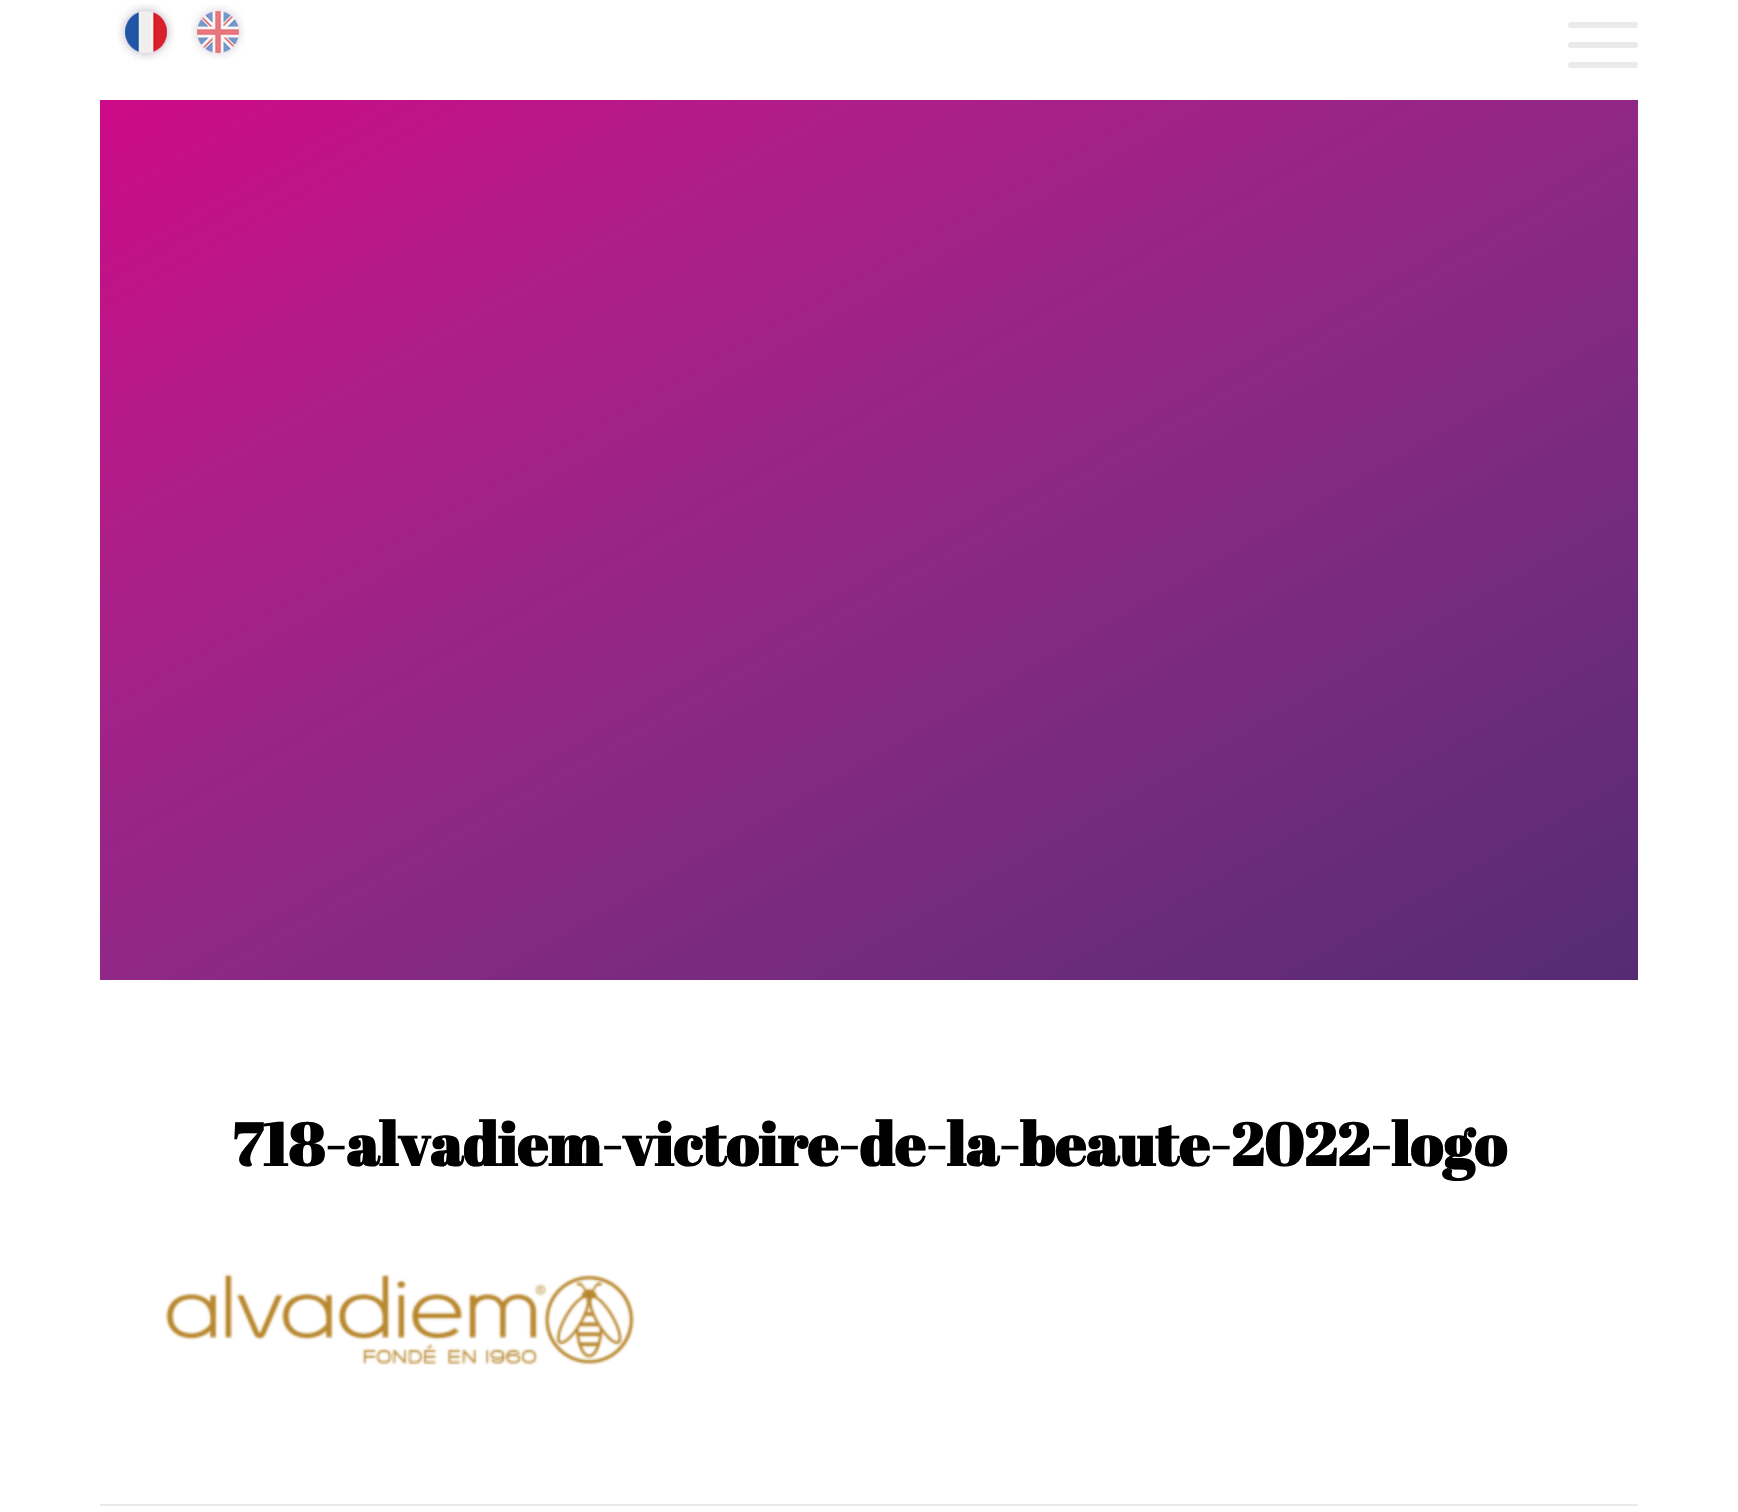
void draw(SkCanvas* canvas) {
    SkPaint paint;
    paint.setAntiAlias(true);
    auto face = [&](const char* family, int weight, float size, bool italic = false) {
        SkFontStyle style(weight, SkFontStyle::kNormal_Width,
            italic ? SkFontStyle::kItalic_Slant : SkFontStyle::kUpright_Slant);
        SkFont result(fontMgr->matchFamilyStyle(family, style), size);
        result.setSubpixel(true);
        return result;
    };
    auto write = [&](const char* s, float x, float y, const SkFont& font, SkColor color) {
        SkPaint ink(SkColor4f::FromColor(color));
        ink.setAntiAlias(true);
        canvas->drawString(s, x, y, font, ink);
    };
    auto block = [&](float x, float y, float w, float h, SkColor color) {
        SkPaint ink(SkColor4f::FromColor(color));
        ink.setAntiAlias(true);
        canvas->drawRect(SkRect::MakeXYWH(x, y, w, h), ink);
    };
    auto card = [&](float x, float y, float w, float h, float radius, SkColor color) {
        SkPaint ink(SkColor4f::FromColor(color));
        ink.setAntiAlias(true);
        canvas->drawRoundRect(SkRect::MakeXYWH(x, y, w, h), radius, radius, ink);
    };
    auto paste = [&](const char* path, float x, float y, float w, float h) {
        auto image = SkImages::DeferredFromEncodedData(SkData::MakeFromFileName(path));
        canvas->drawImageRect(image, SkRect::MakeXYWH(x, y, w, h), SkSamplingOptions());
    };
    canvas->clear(SK_ColorWHITE);
    paste("pic1.png", 117, 3, 58, 59);
    paste("pic2.png", 191, 5, 54, 54);
    card(1568, 42, 70, 6, 3, SkColorSetRGB(234, 234, 234));
    card(1568, 22, 70, 6, 3, SkColorSetRGB(234, 234, 234));
    card(1568, 62, 70, 6, 3, SkColorSetRGB(234, 234, 234));
    {
        const SkColor colors[] = {SkColorSetRGB(205, 10, 136), SkColorSetRGB(174, 30, 137), SkColorSetRGB(144, 39, 134), SkColorSetRGB(114, 43, 127), SkColorSetRGB(85, 43, 116)};
        const float stops[] = {0, 0.25f, 0.5f, 0.75f, 1};
        const SkPoint ends[] = {{490, -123}, {1248, 1203}};
        paint.setShader(SkGradientShader::MakeLinear(ends, colors, stops, 5, SkTileMode::kClamp));
        paint.setAlpha(255);
    }
    canvas->drawRect(SkRect::MakeXYWH(100, 100, 1538, 880), paint);
    auto kFont1 = face("Abril Fatface", 700, 60);
    write("718-alvadiem-victoire-de-la-beaute-2022-logo", 232, 1166, kFont1, SK_ColorBLACK);
    block(100, 1504, 1538, 2, SkColorSetRGB(234, 234, 234));
    paste("pic3.png", 165, 1273, 470, 92);
}
